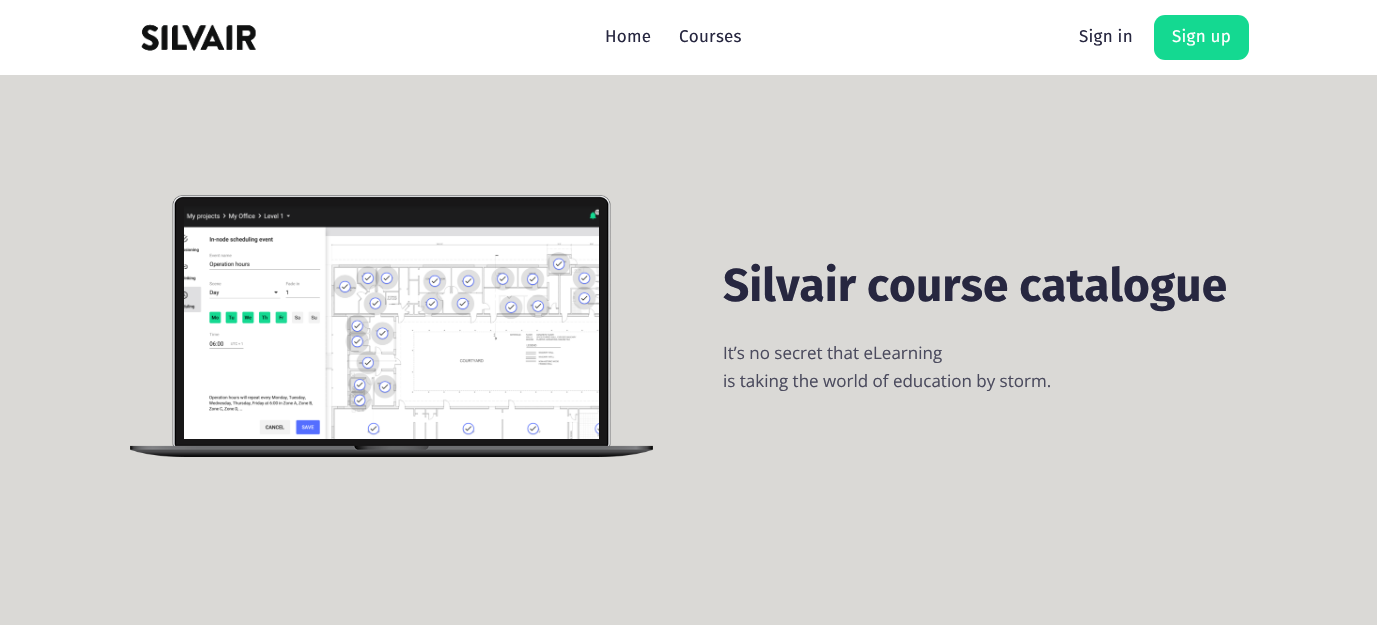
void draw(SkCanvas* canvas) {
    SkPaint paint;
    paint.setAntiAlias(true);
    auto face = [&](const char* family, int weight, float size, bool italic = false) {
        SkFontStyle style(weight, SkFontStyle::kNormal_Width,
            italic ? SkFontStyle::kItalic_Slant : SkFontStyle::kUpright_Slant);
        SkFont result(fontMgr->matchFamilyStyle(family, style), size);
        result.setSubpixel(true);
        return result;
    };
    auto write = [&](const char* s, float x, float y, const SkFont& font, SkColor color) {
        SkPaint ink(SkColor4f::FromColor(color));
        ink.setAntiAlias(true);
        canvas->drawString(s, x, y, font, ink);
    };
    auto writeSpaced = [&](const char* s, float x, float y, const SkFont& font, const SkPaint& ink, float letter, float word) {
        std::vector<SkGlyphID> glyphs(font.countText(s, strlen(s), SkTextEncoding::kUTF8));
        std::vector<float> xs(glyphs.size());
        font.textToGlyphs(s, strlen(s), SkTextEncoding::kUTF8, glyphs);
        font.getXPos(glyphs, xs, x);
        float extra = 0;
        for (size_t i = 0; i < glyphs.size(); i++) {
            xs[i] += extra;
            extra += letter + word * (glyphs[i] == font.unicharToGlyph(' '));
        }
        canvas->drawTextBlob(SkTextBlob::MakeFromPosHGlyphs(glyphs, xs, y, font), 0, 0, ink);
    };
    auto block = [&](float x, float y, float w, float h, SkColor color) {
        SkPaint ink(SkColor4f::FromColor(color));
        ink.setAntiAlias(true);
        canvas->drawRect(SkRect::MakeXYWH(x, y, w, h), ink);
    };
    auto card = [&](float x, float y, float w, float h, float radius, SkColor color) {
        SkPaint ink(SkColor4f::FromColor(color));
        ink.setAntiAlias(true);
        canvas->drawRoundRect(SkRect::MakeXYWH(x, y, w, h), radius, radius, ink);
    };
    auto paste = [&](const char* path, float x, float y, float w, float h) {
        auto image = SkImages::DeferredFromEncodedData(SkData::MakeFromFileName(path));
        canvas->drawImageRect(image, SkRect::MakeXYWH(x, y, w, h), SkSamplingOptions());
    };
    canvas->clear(SK_ColorWHITE);
    paste("pic1.png", 141, 24, 115, 27);
    auto kFont1 = face("Fira Sans", 400, 17);
    paint.setColor(SkColorSetRGB(39, 39, 64));
    writeSpaced("Home", 605, 42, kFont1, paint, 0.25f, 0);
    writeSpaced("Courses", 679, 42, kFont1, paint, 0.25f, 0);
    writeSpaced("Sign in", 1079, 42, kFont1, paint, 0.25f, 0);
    card(1154, 15, 95, 45, 11, SkColorSetRGB(20, 217, 145));
    paint.setColor(SK_ColorWHITE);
    writeSpaced("Sign up", 1172, 42, kFont1, paint, 0.25f, 0);
    block(0, 75, 1377, 550, SkColorSetRGB(218, 217, 214));
    paste("pic2.png", 130, 195, 523, 262);
    paste("pic3.png", 184, 206, 415, 233);
    auto kFont2 = face("Fira Sans", 700, 46);
    write("Silvair course catalogue", 723, 301, kFont2, SkColorSetRGB(39, 39, 64));
    auto kFont3 = face("Open Sans", 400, 17);
    write("It’s no secret that eLearning", 723, 359, kFont3, SkColorSetRGB(75, 75, 94));
    write("is taking the world of education by storm.", 723, 387, kFont3, SkColorSetRGB(75, 75, 94));
}
